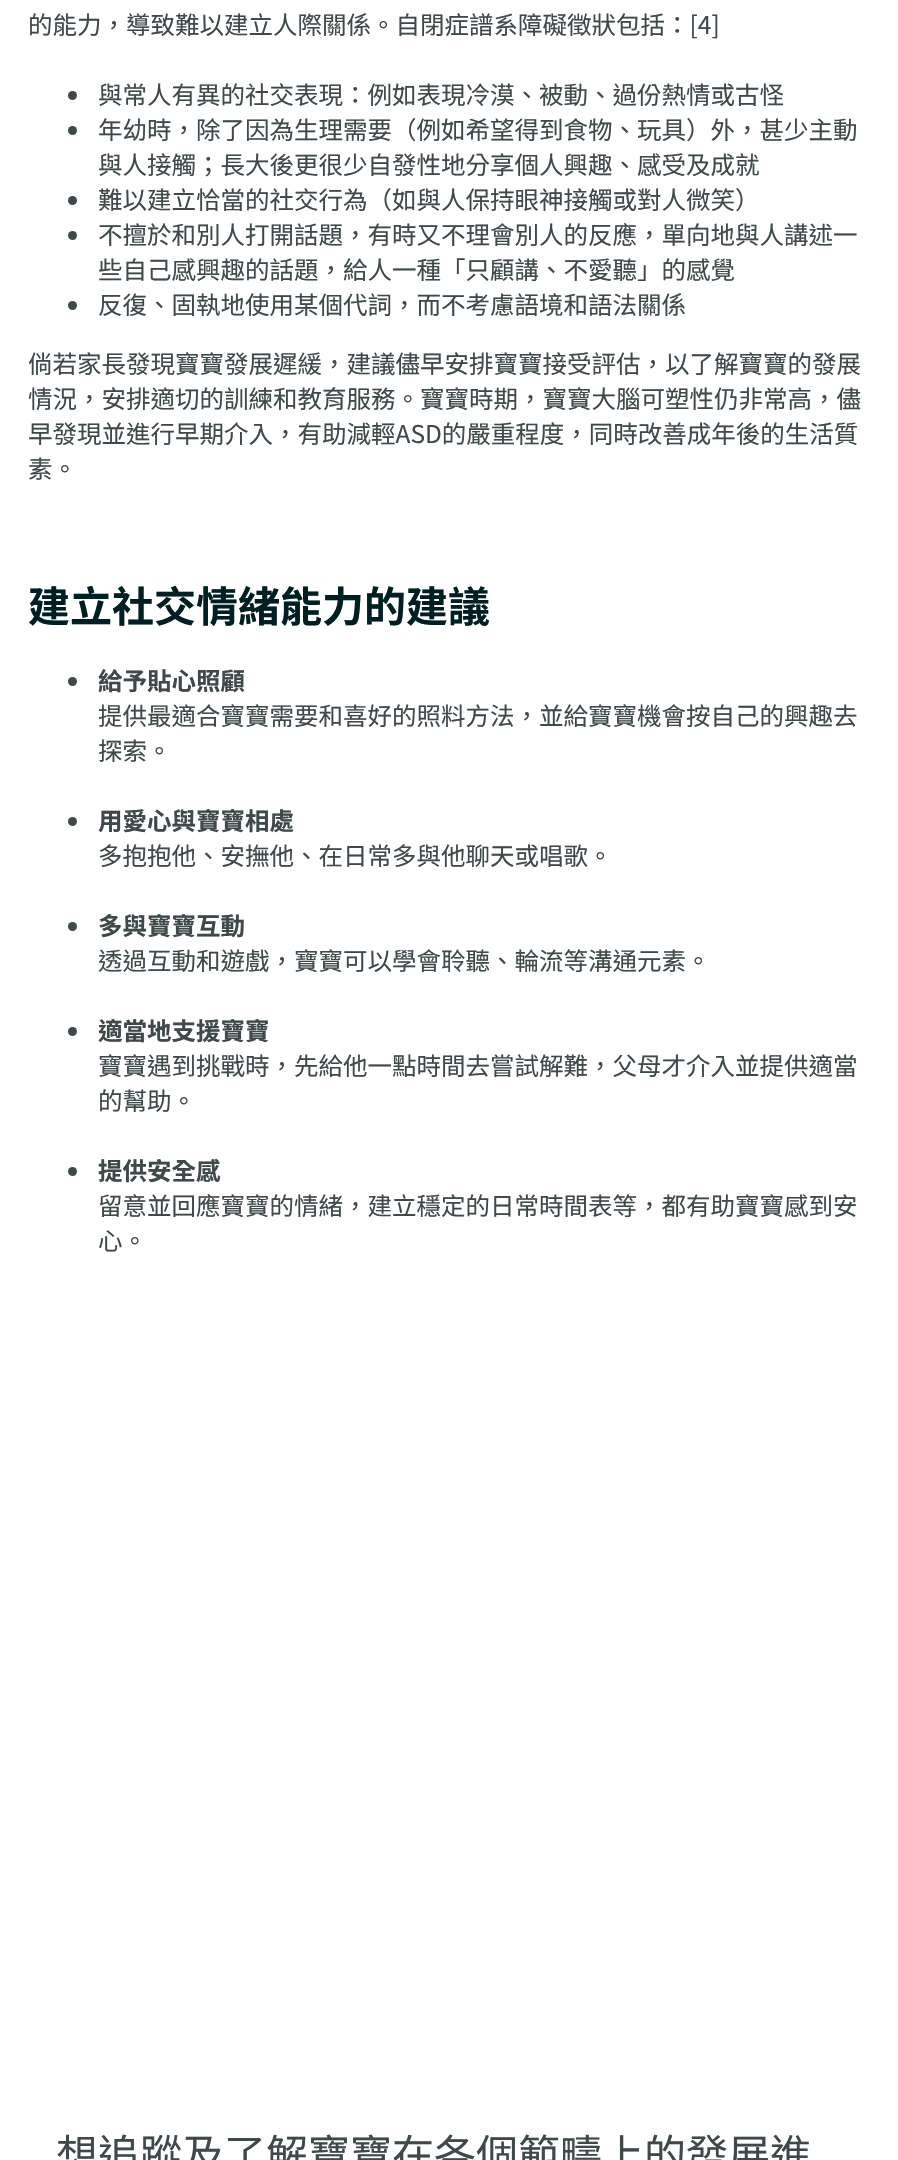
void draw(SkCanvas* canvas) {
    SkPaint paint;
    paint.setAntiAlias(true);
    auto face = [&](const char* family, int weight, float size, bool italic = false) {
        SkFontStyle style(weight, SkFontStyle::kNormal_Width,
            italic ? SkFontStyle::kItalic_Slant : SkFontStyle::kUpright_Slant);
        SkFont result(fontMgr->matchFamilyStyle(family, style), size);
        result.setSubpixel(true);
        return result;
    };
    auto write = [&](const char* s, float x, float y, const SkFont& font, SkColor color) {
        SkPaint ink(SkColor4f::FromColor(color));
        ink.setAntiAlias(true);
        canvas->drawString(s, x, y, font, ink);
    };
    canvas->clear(SK_ColorWHITE);
    auto kFont1 = face("Noto Sans TC", 400, 24.5f);
    write("的能力，導致難以建立人際關係。自閉症譜系障礙徵狀包括：[4]", 28, 34, kFont1, SkColorSetRGB(63, 73, 74));
    paint.setColor(SkColorSetRGB(63, 73, 74));
    canvas->drawCircle(72.5f, 95.5f, 4.5f, paint);
    write("與常人有異的社交表現：例如表現冷漠、被動、過份熱情或古怪", 98, 104, kFont1, SkColorSetRGB(63, 73, 74));
    canvas->drawCircle(72.5f, 130.5f, 4.5f, paint);
    write("年幼時，除了因為生理需要（例如希望得到食物、玩具）外，甚少主動", 98, 139, kFont1, SkColorSetRGB(63, 73, 74));
    write("與人接觸；長大後更很少自發性地分享個人興趣、感受及成就", 98, 174, kFont1, SkColorSetRGB(63, 73, 74));
    canvas->drawCircle(72.5f, 200.5f, 4.5f, paint);
    write("難以建立恰當的社交行為（如與人保持眼神接觸或對人微笑）", 98, 209, kFont1, SkColorSetRGB(63, 73, 74));
    canvas->drawCircle(72.5f, 235.5f, 4.5f, paint);
    write("不擅於和別人打開話題，有時又不理會別人的反應，單向地與人講述一", 98, 244, kFont1, SkColorSetRGB(63, 73, 74));
    write("些自己感興趣的話題，給人一種「只顧講、不愛聽」的感覺", 98, 279, kFont1, SkColorSetRGB(63, 73, 74));
    canvas->drawCircle(72.5f, 305.5f, 4.5f, paint);
    write("反復、固執地使用某個代詞，而不考慮語境和語法關係", 98, 314, kFont1, SkColorSetRGB(63, 73, 74));
    write("倘若家長發現寶寶發展遲緩，建議儘早安排寶寶接受評估，以了解寶寶的發展", 28, 373, kFont1, SkColorSetRGB(63, 73, 74));
    write("情況，安排適切的訓練和教育服務。寶寶時期，寶寶大腦可塑性仍非常高，儘", 28, 408, kFont1, SkColorSetRGB(63, 73, 74));
    write("早發現並進行早期介入，有助減輕ASD的嚴重程度，同時改善成年後的生活質", 28, 443, kFont1, SkColorSetRGB(63, 73, 74));
    write("素。", 28, 478, kFont1, SkColorSetRGB(63, 73, 74));
    auto kFont2 = face("Noto Sans TC", 700, 42);
    write("建立社交情緒能力的建議", 28, 622, kFont2, SkColorSetRGB(0, 31, 35));
    canvas->drawCircle(72.5f, 681.5f, 4.5f, paint);
    auto kFont3 = face("Noto Sans TC", 700, 24.5f);
    write("給予貼心照顧", 98, 690, kFont3, SkColorSetRGB(63, 73, 74));
    write("提供最適合寶寶需要和喜好的照料方法，並給寶寶機會按自己的興趣去", 98, 725, kFont1, SkColorSetRGB(63, 73, 74));
    write("探索。", 98, 760, kFont1, SkColorSetRGB(63, 73, 74));
    canvas->drawCircle(72.5f, 821.5f, 4.5f, paint);
    write("用愛心與寶寶相處", 98, 830, kFont3, SkColorSetRGB(63, 73, 74));
    write("多抱抱他、安撫他、在日常多與他聊天或唱歌。", 98, 865, kFont1, SkColorSetRGB(63, 73, 74));
    canvas->drawCircle(72.5f, 926.5f, 4.5f, paint);
    write("多與寶寶互動", 98, 935, kFont3, SkColorSetRGB(63, 73, 74));
    write("透過互動和遊戲，寶寶可以學會聆聽、輪流等溝通元素。", 98, 970, kFont1, SkColorSetRGB(63, 73, 74));
    canvas->drawCircle(72.5f, 1031.5f, 4.5f, paint);
    write("適當地支援寶寶", 98, 1040, kFont3, SkColorSetRGB(63, 73, 74));
    write("寶寶遇到挑戰時，先給他一點時間去嘗試解難，父母才介入並提供適當", 98, 1075, kFont1, SkColorSetRGB(63, 73, 74));
    write("的幫助。", 98, 1110, kFont1, SkColorSetRGB(63, 73, 74));
    canvas->drawCircle(72.5f, 1171.5f, 4.5f, paint);
    write("提供安全感", 98, 1180, kFont3, SkColorSetRGB(63, 73, 74));
    write("留意並回應寶寶的情緒，建立穩定的日常時間表等，都有助寶寶感到安", 98, 1215, kFont1, SkColorSetRGB(63, 73, 74));
    write("心。", 98, 1250, kFont1, SkColorSetRGB(63, 73, 74));
    auto kFont4 = face("Noto Sans TC", 400, 42);
    write("想追蹤及了解寶寶在各個範疇上的發展進", 56, 2170, kFont4, SkColorSetRGB(63, 73, 74));
}
